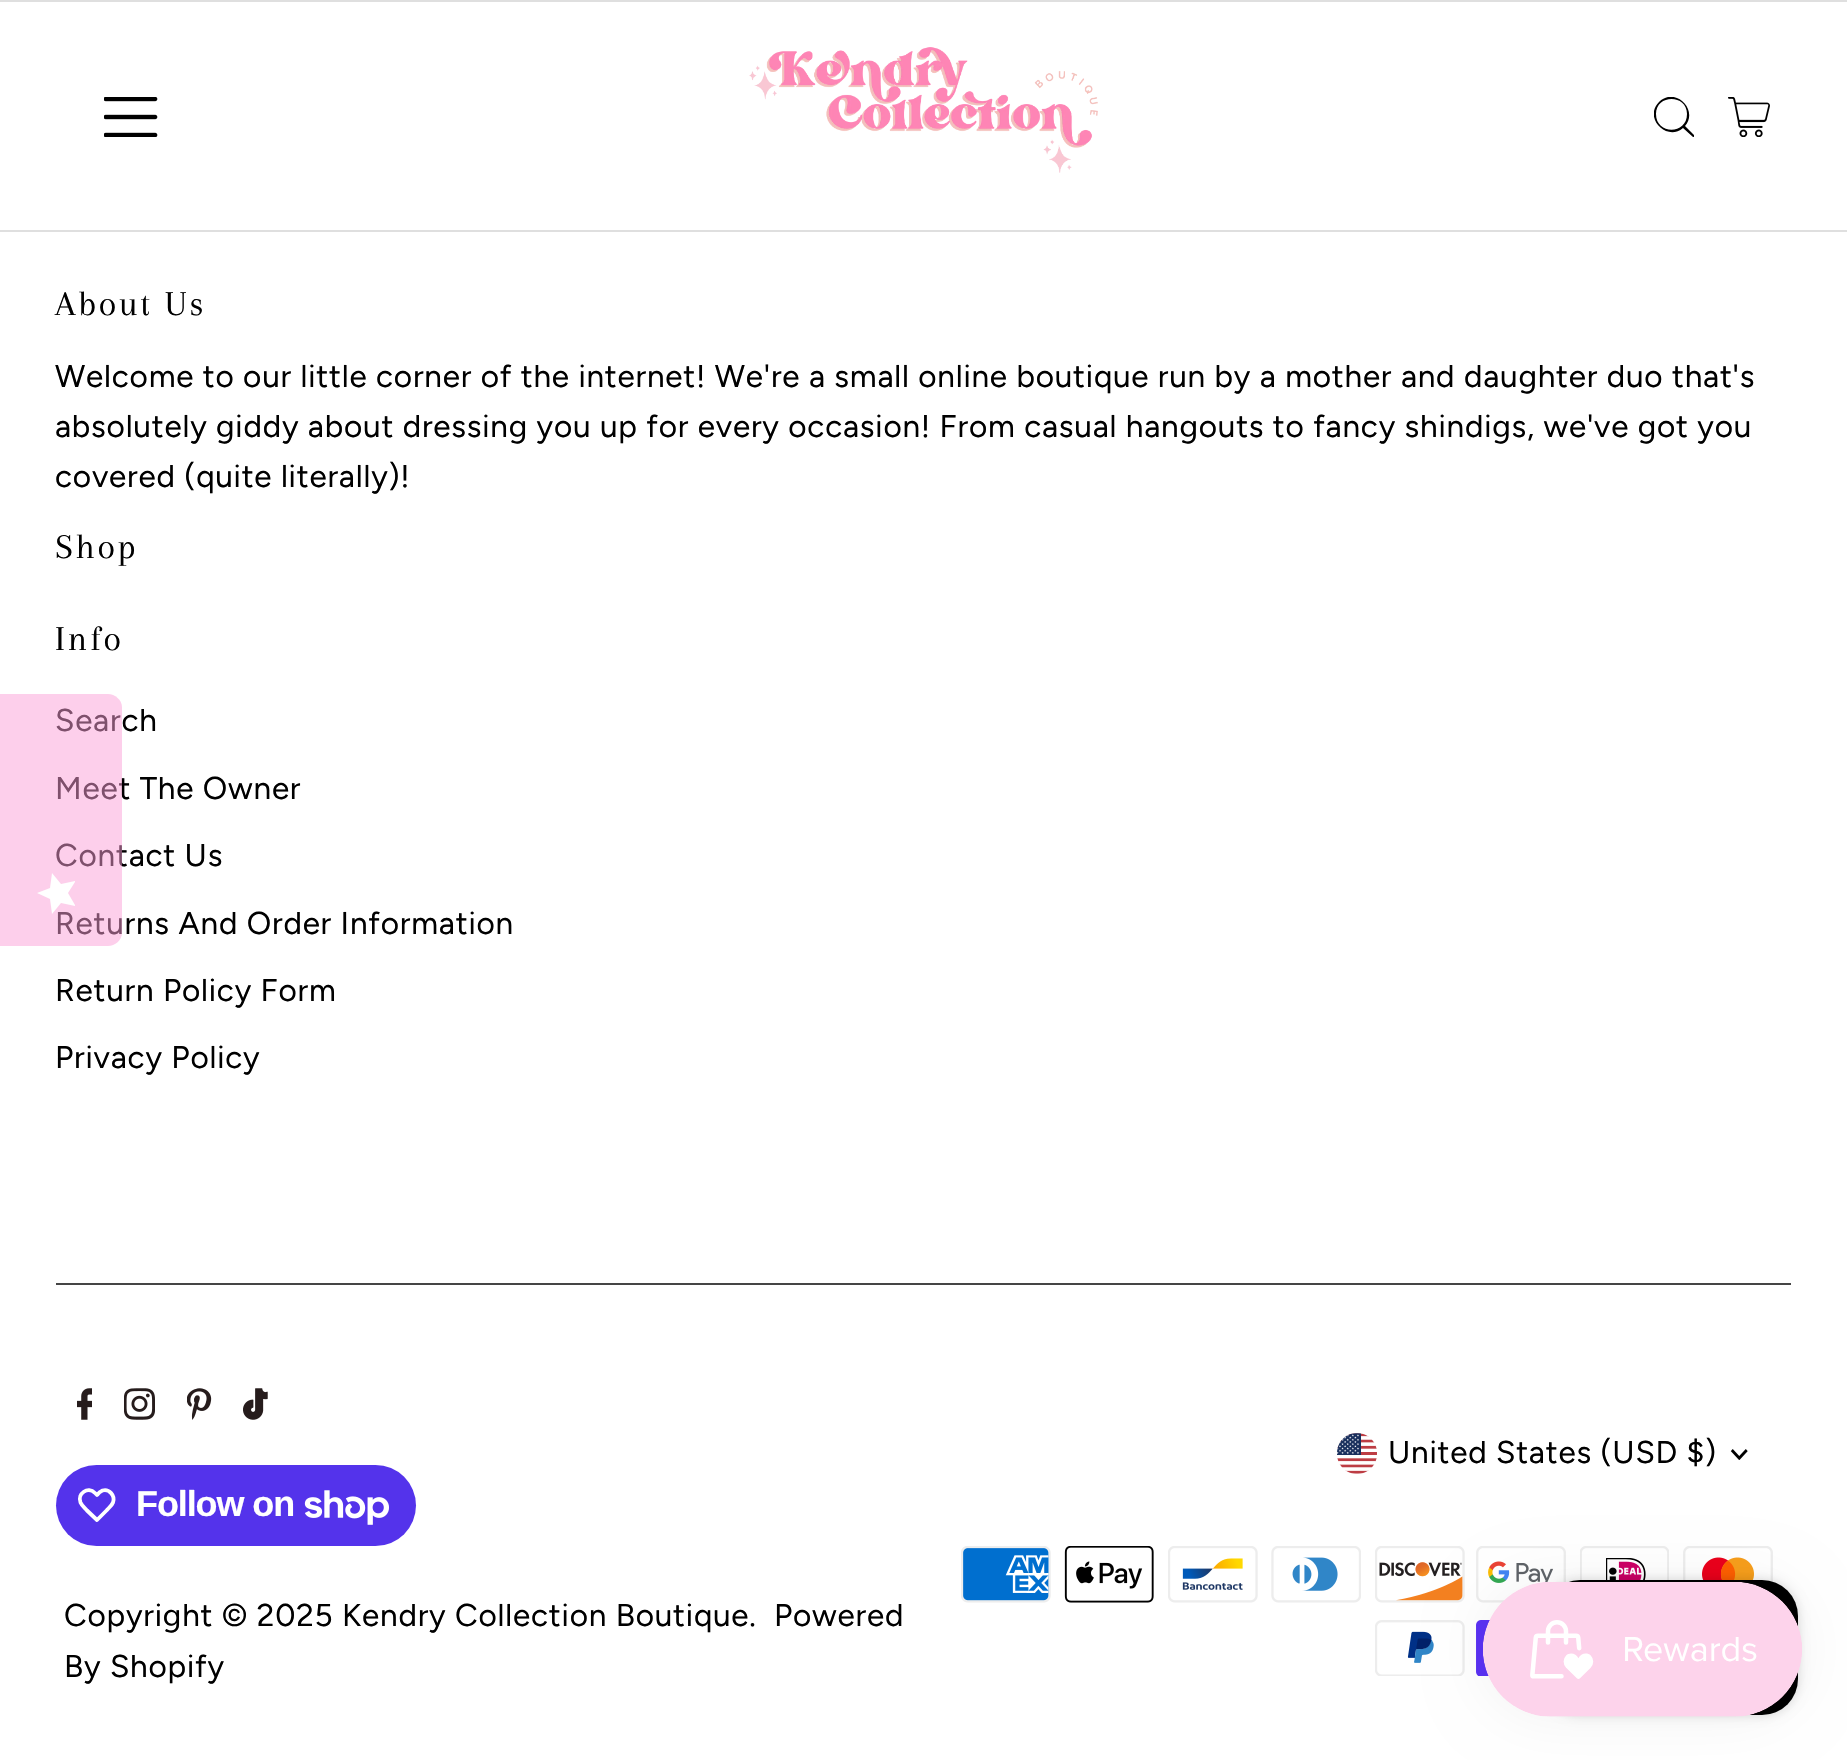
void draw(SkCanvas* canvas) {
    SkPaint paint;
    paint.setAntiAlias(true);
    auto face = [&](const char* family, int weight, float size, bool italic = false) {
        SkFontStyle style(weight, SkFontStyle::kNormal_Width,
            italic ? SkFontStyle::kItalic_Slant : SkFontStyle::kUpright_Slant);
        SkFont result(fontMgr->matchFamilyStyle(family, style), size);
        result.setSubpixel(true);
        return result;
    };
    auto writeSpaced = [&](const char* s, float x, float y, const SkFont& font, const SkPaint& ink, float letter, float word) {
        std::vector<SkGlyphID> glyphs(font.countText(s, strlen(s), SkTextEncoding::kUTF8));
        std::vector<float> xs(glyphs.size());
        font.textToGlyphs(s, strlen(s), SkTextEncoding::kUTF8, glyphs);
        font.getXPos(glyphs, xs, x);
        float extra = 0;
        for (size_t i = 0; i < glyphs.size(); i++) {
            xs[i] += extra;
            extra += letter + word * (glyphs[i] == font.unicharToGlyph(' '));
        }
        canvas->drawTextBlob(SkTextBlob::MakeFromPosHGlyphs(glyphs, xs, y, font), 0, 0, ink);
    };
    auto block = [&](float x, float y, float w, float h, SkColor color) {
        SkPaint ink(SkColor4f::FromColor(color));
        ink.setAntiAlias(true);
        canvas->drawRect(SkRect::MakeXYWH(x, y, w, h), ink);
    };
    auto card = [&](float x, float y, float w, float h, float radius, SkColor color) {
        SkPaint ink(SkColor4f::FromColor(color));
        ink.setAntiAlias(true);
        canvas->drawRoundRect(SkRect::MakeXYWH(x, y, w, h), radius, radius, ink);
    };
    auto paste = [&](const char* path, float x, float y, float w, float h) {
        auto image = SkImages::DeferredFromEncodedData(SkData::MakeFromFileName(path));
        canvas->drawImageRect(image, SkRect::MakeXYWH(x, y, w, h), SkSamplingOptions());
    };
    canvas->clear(SK_ColorWHITE);
    block(0, 0, 1847, 2, SkColorSetRGB(223, 223, 223));
    block(0, 230, 1847, 2, SkColorSetRGB(223, 223, 223));
    paste("pic1.png", 104, 97, 54, 40);
    paste("pic2.png", 749, 47, 349, 126);
    canvas->save();
    canvas->clipRect(SkRect::MakeXYWH(1654, 97, 40, 40));
    paint.setColor(SK_ColorBLACK);
    canvas->drawPath(SkPathBuilder().moveTo(1694, 135).lineTo(1685, 126).cubicTo(1699, 110, 1675, 86, 1659, 102).cubicTo(1643, 118, 1667, 142, 1683, 128).lineTo(1693, 137).cubicTo(1694, 137, 1695, 136, 1694, 135).close().moveTo(1656, 114).cubicTo(1656, 94, 1687, 94, 1687, 114).cubicTo(1687, 135, 1656, 135, 1656, 114).close().detach(), paint);
    canvas->restore();
    paste("pic3.png", 1728, 97, 42, 40);
    auto kFont1 = face("Arapey", 400, 36);
    writeSpaced("About Us", 55, 315, kFont1, paint, 2.75f, 0);
    auto kFont2 = face("Figtree", 400, 31.5f);
    writeSpaced("Welcome to our little corner of the internet! We're a small online boutique run by a mother and daughter duo that's", 55, 387, kFont2, paint, 0.79f, 0);
    writeSpaced("absolutely giddy about dressing you up for every occasion! From casual hangouts to fancy shindigs, we've got you", 55, 437, kFont2, paint, 0.79f, 0);
    writeSpaced("covered (quite literally)!", 55, 487, kFont2, paint, 0.79f, 0);
    writeSpaced("Shop", 55, 558, kFont1, paint, 2.75f, 0);
    writeSpaced("Info", 55, 650, kFont1, paint, 2.75f, 0);
    writeSpaced("Search", 55, 731, kFont2, paint, 0.79f, 0);
    writeSpaced("Meet The Owner", 55, 799, kFont2, paint, 0.79f, 0);
    writeSpaced("Contact Us", 55, 866, kFont2, paint, 0.79f, 0);
    writeSpaced("Returns And Order Information", 55, 934, kFont2, paint, 0.79f, 0);
    writeSpaced("Return Policy Form", 55, 1001, kFont2, paint, 0.79f, 0);
    writeSpaced("Privacy Policy", 55, 1068, kFont2, paint, 0.79f, 0);
    block(56, 1283, 1735, 2, SkColorSetRGB(69, 69, 69));
    paste("pic4.png", 1337, 1433, 40, 41);
    writeSpaced("United States (USD $)", 1388, 1463, kFont2, paint, 0.79f, 0);
    paste("pic5.png", 1730, 1449, 18, 11);
    paste("pic6.png", 961, 1546, 90, 57);
    paste("pic7.png", 1064, 1546, 90, 57);
    paste("pic8.png", 1168, 1546, 90, 57);
    paste("pic9.png", 1271, 1546, 90, 57);
    paste("pic10.png", 1375, 1546, 90, 57);
    paste("pic11.png", 1476, 1546, 90, 57);
    paste("pic12.png", 1580, 1546, 89, 34);
    paste("pic13.png", 1683, 1546, 90, 36);
    paste("pic14.png", 1375, 1620, 90, 56);
    paste("pic15.png", 1476, 1620, 14, 56);
    paste("pic16.png", 77, 1388, 15, 32);
    paste("pic17.png", 124, 1388, 31, 32);
    paste("pic18.png", 187, 1388, 25, 32);
    paste("pic19.png", 243, 1388, 25, 32);
    card(56, 1465, 360, 81, 40.5f, SkColorSetRGB(84, 51, 235));
    paint.setStyle(SkPaint::kStroke_Style);
    paint.setStrokeWidth(3.8f);
    paint.setStrokeJoin(SkPaint::kRound_Join);
    paint.setColor(SK_ColorWHITE);
    canvas->drawPath(SkPathBuilder().moveTo(95, 1493).lineTo(97, 1495).cubicTo(98.5f, 1493, 100, 1491.5f, 102.5f, 1490.5f).cubicTo(109, 1488.5f, 115.5f, 1495.5f, 113, 1502.5f).cubicTo(112, 1505.5f, 108.5f, 1508, 106.5f, 1510.5f).lineTo(97, 1520).lineTo(87, 1510.5f).cubicTo(85, 1508, 82, 1506, 80.5f, 1502.5f).cubicTo(77, 1493.5f, 88, 1486, 95, 1493).close().detach(), paint);
    auto kFont3 = face("Liberation Sans", 700, 36);
    paint.setStyle(SkPaint::kFill_Style);
    writeSpaced("Follow on", 136, 1516, kFont3, paint, -1.1f, 0);
    paste("pic20.png", 304, 1490, 85, 35);
    paint.setColor(SK_ColorBLACK);
    writeSpaced("Copyright © 2025 Kendry Collection Boutique.", 64, 1626, kFont2, paint, 0.79f, 0);
    writeSpaced("Powered", 774, 1626, kFont2, paint, 0.79f, 0);
    writeSpaced("By Shopify", 64, 1677, kFont2, paint, 0.79f, 0);
    paint.setColor(SkColorSetARGB(128, 252, 159, 215));
    canvas->drawPath(SkPathBuilder().moveTo(0, 946).lineTo(0, 694).lineTo(108, 694).cubicTo(115, 694, 122, 700, 122, 707).lineTo(122, 933).cubicTo(122, 940, 115, 946, 108, 946).close().detach(), paint);
    {
        const SkColor colors[] = {SK_ColorWHITE, SkColorSetRGB(245, 245, 245)};
        const float stops[] = {1, 1};
        const SkPoint ends[] = {{37, 914}, {37, 873}};
        paint.setShader(SkGradientShader::MakeLinear(ends, colors, stops, 2, SkTileMode::kClamp));
        paint.setAlpha(255);
    }
    canvas->drawPath(SkPathBuilder().moveTo(68, 893).lineTo(75, 905).lineTo(75, 906).lineTo(61, 903).lineTo(52, 914).lineTo(50, 899).lineTo(37, 893).lineTo(50, 888).lineTo(52, 873).lineTo(61, 884).lineTo(75, 881).lineTo(75, 882).close().detach(), paint);
    paint.setShader(nullptr);
    paint.setColor(SkColorSetARGB(38, 0, 0, 0));
    paint.setMaskFilter(SkMaskFilter::MakeBlur(kNormal_SkBlurStyle, 5.5f));
    canvas->drawRoundRect(SkRect::MakeXYWH(1544, 1580, 254, 135), 36, 36, paint);
    paint.setMaskFilter(nullptr);
    card(1544, 1580, 254, 135, 36, SK_ColorBLACK);
    paint.setColor(SkColorSetARGB(13, 0, 0, 0));
    paint.setMaskFilter(SkMaskFilter::MakeBlur(kNormal_SkBlurStyle, 28));
    canvas->drawRoundRect(SkRect::MakeXYWH(1483, 1582, 319, 135), 67.5f, 67.5f, paint);
    paint.setMaskFilter(nullptr);
    paste("pic21.png", 1483, 1582, 319, 135);
}
